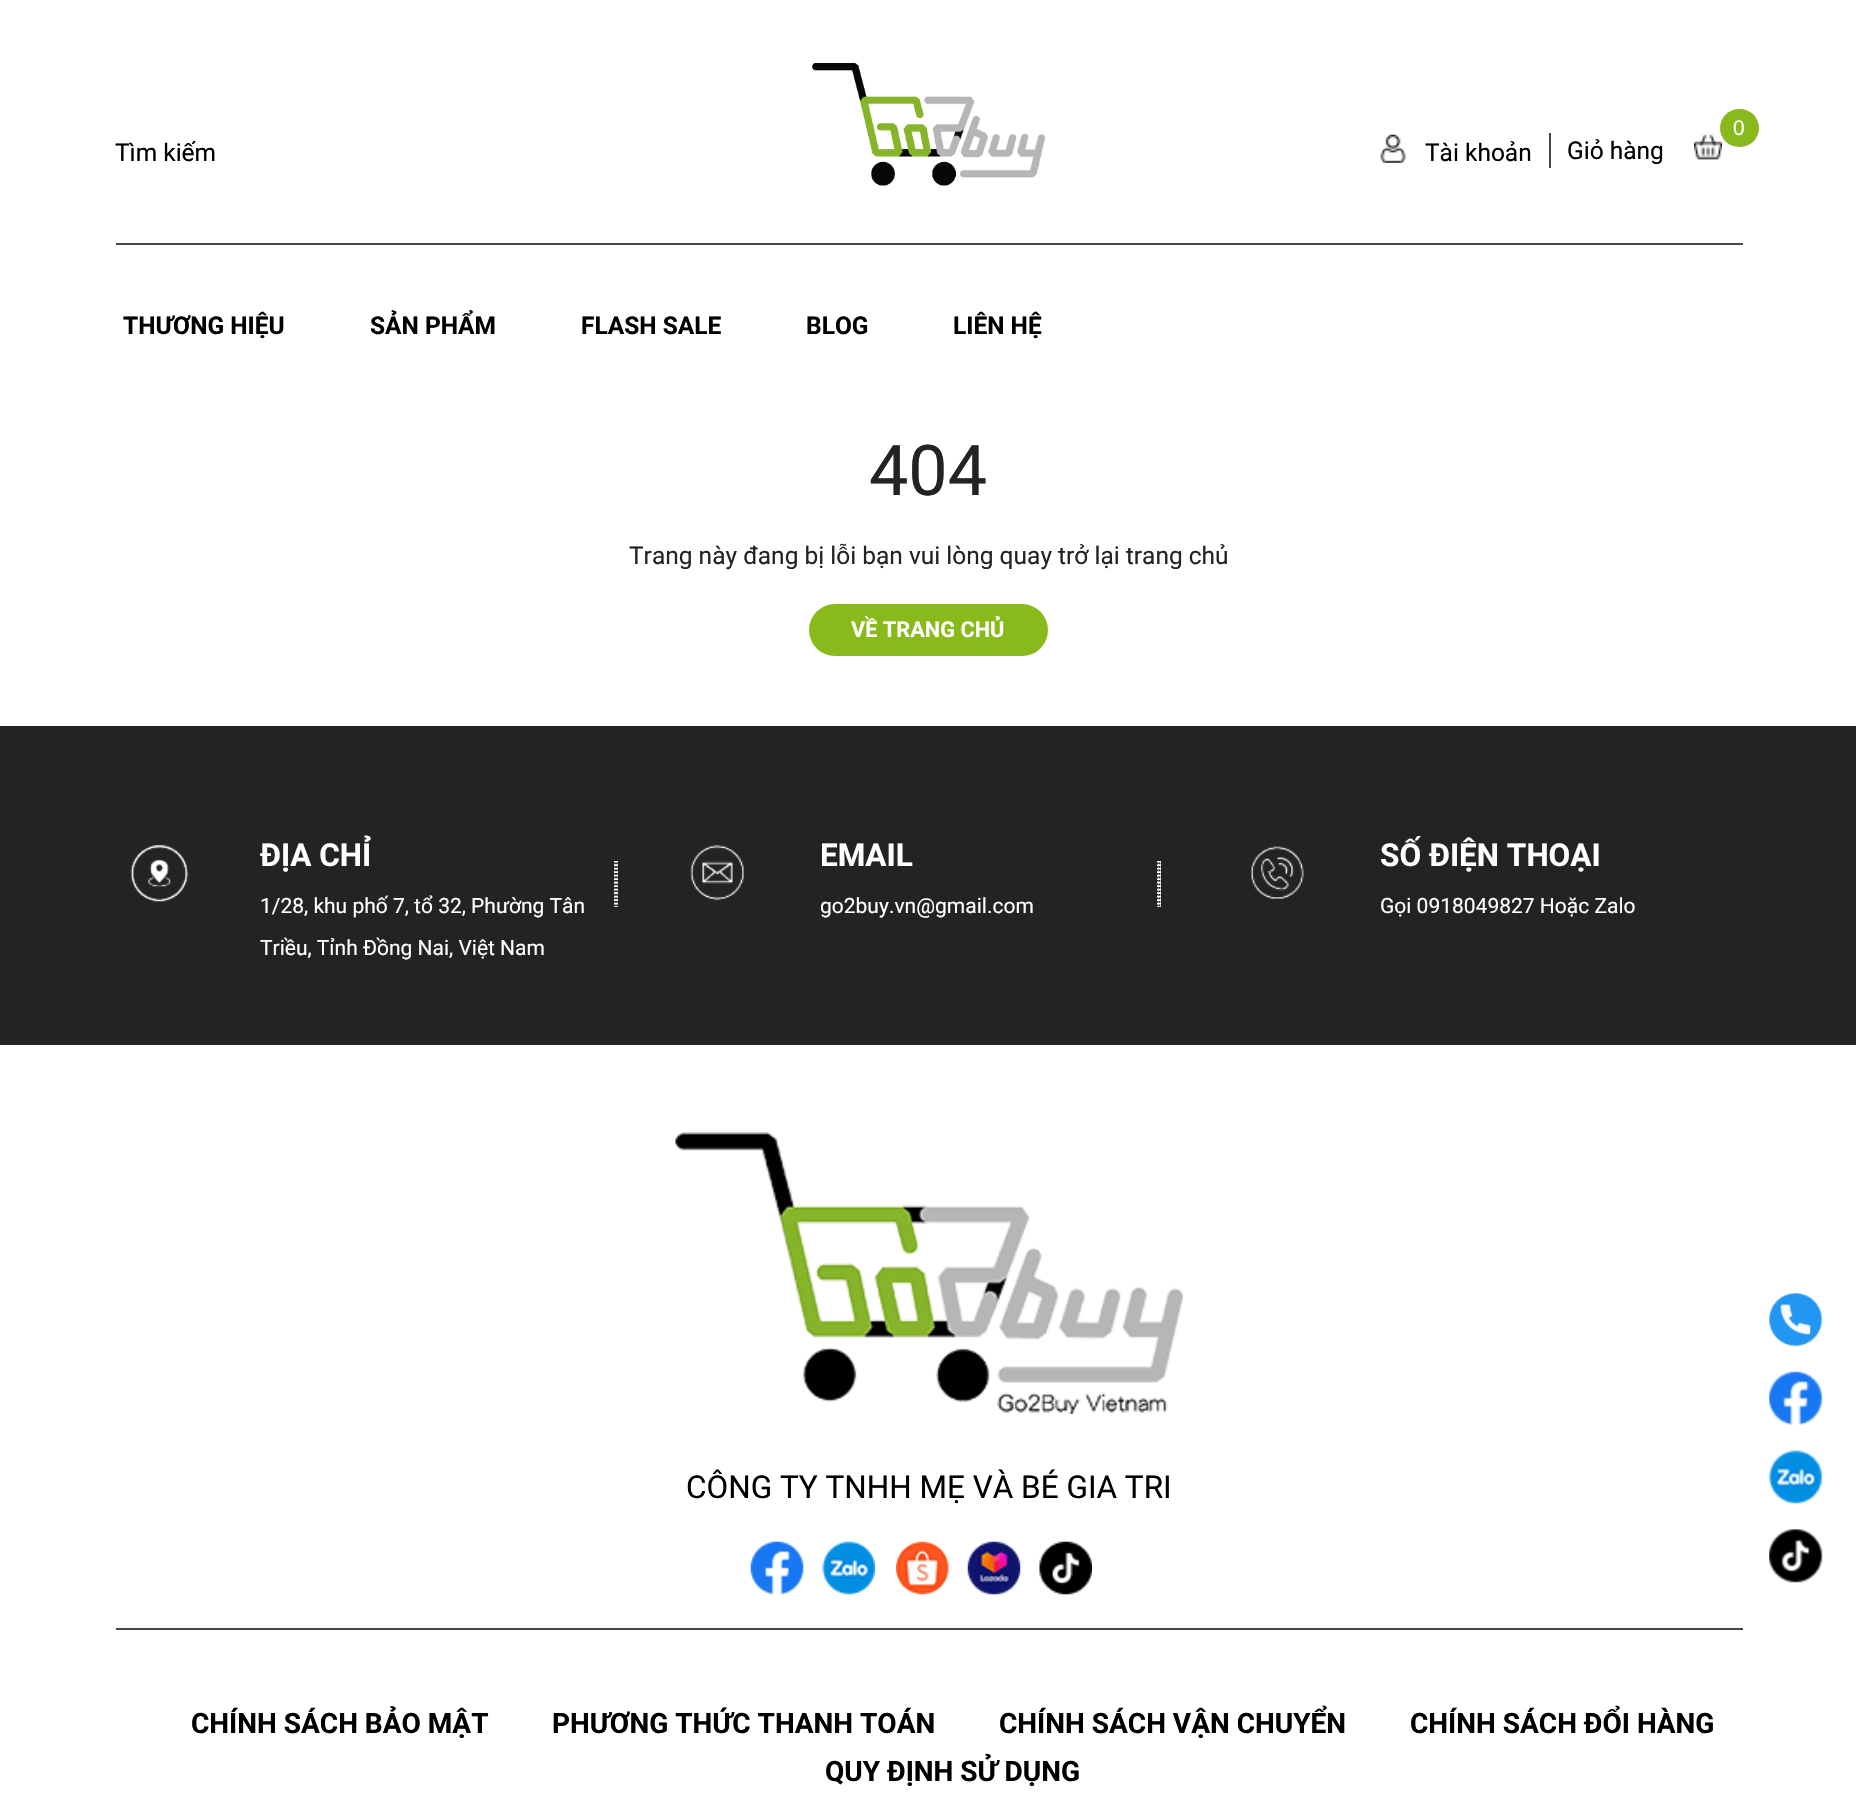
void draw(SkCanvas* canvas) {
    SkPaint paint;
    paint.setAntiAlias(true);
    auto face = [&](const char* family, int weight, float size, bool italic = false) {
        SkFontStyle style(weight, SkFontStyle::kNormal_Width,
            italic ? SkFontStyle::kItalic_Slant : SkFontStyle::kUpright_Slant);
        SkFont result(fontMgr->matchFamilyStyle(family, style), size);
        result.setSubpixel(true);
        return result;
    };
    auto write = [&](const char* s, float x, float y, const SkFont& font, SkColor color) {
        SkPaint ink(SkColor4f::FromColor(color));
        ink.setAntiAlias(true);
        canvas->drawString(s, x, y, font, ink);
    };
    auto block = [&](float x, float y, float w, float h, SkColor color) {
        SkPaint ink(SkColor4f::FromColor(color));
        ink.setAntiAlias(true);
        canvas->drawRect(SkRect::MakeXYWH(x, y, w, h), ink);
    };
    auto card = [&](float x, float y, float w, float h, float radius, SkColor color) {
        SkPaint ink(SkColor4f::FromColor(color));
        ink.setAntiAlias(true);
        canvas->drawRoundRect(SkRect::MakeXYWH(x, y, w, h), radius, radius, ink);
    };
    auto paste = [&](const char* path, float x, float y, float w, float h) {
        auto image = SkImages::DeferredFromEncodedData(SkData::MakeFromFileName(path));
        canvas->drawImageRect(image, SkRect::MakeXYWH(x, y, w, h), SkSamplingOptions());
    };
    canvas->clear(SK_ColorWHITE);
    block(116, 243, 1627, 2, SkColorSetRGB(71, 71, 71));
    auto kFont1 = face("Roboto", 400, 24.5f);
    write("Tìm kiếm", 115, 161, kFont1, SK_ColorBLACK);
    paste("pic1.png", 812, 63, 233, 123);
    paste("pic2.png", 1380, 134, 26, 29);
    write("Tài khoản", 1425, 161, kFont1, SK_ColorBLACK);
    block(1549, 133, 2, 35, SkColorSetRGB(71, 71, 71));
    paste("pic3.png", 1694, 134, 28, 26);
    card(1720, 109, 39, 38, 19, SkColorSetRGB(137, 186, 28));
    auto kFont2 = face("Liberation Sans", 400, 21);
    write("0", 1733, 135, kFont2, SK_ColorWHITE);
    write("Giỏ hàng", 1567, 159, kFont1, SK_ColorBLACK);
    auto kFont3 = face("Roboto", 700, 24.5f);
    write("THƯƠNG HIỆU", 123, 334, kFont3, SK_ColorBLACK);
    write("SẢN PHẨM", 370, 334, kFont3, SK_ColorBLACK);
    write("FLASH SALE", 581, 334, kFont3, SK_ColorBLACK);
    write("BLOG", 806, 334, kFont3, SK_ColorBLACK);
    write("LIÊN HỆ", 953, 334, kFont3, SK_ColorBLACK);
    auto kFont4 = face("Roboto", 400, 70);
    write("404", 869, 495, kFont4, SkColorSetRGB(35, 35, 35));
    write("Trang này đang bị lỗi bạn vui lòng quay trở lại trang chủ", 629, 564, kFont1, SkColorSetRGB(35, 35, 35));
    card(809, 604, 239, 52, 26, SkColorSetRGB(137, 186, 28));
    auto kFont5 = face("Roboto", 700, 21.75f);
    write("VỀ TRANG CHỦ", 851, 637, kFont5, SK_ColorWHITE);
    block(0, 726, 1856, 319, SkColorSetRGB(35, 35, 35));
    paste("pic4.png", 130, 845, 59, 57);
    auto kFont6 = face("Roboto", 700, 31.5f);
    write("ĐỊA CHỈ", 260, 866, kFont6, SK_ColorWHITE);
    auto kFont7 = face("Roboto", 400, 21);
    write("1/28, khu phố 7, tổ 32, Phường Tân", 260, 913, kFont7, SK_ColorWHITE);
    write("Triều, Tỉnh Đồng Nai, Việt Nam", 260, 955, kFont7, SK_ColorWHITE);
    block(614, 859, 4, 49, SK_ColorWHITE);
    block(614, 859, 4, 2, SkColorSetRGB(35, 35, 35));
    paint.setStyle(SkPaint::kStroke_Style);
    paint.setStrokeWidth(1.8f);
    paint.setColor(SkColorSetRGB(35, 35, 35));
    paint.setPathEffect(SkDashPathEffect::Make({{1.75f, 1.75f}}, 0));
    canvas->drawPath(SkPathBuilder().moveTo(617, 859).lineTo(617, 908).detach(), paint);
    paint.setPathEffect(nullptr);
    block(614, 907, 4, 1, SkColorSetRGB(35, 35, 35));
    paint.setPathEffect(SkDashPathEffect::Make({{1.75f, 1.75f}}, 0));
    canvas->drawPath(SkPathBuilder().moveTo(615, 859).lineTo(615, 908).detach(), paint);
    paint.setPathEffect(nullptr);
    paste("pic5.png", 690, 845, 55, 56);
    write("EMAIL", 820, 866, kFont6, SK_ColorWHITE);
    write("go2buy.vn@gmail.com", 820, 913, kFont7, SK_ColorWHITE);
    block(1157, 859, 4, 49, SK_ColorWHITE);
    block(1157, 859, 4, 2, SkColorSetRGB(35, 35, 35));
    paint.setPathEffect(SkDashPathEffect::Make({{1.75f, 1.75f}}, 0));
    canvas->drawPath(SkPathBuilder().moveTo(1159.5f, 859).lineTo(1159.5f, 908).detach(), paint);
    paint.setPathEffect(nullptr);
    block(1157, 907, 4, 1, SkColorSetRGB(35, 35, 35));
    paint.setPathEffect(SkDashPathEffect::Make({{1.75f, 1.75f}}, 0));
    canvas->drawPath(SkPathBuilder().moveTo(1157.5f, 859).lineTo(1157.5f, 908).detach(), paint);
    paint.setPathEffect(nullptr);
    paste("pic6.png", 1250, 846, 54, 54);
    write("SỐ ĐIỆN THOẠI", 1380, 866, kFont6, SK_ColorWHITE);
    write("Gọi 0918049827 Hoặc Zalo", 1380, 913, kFont7, SK_ColorWHITE);
    paste("pic7.png", 675, 1132, 508, 282);
    auto kFont8 = face("Roboto", 400, 31.5f);
    write("CÔNG TY TNHH MẸ VÀ BÉ GIA TRI", 686, 1498, kFont8, SK_ColorBLACK);
    block(116, 1628, 1627, 2, SkColorSetRGB(71, 71, 71));
    paste("pic8.png", 750, 1541, 54, 54);
    paste("pic9.png", 822, 1541, 53, 54);
    paste("pic10.png", 896, 1541, 53, 54);
    paste("pic11.png", 967, 1541, 54, 54);
    paste("pic12.png", 1039, 1541, 53, 54);
    auto kFont9 = face("Roboto", 700, 28);
    write("CHÍNH SÁCH BẢO MẬT", 191, 1733, kFont9, SK_ColorBLACK);
    write("PHƯƠNG THỨC THANH TOÁN", 552, 1733, kFont9, SK_ColorBLACK);
    write("CHÍNH SÁCH VẬN CHUYỂN", 999, 1733, kFont9, SK_ColorBLACK);
    write("CHÍNH SÁCH ĐỔI HÀNG", 1410, 1733, kFont9, SK_ColorBLACK);
    write("QUY ĐỊNH SỬ DỤNG", 825, 1781, kFont9, SK_ColorBLACK);
    paste("pic13.png", 1769, 1293, 54, 54);
    paste("pic14.png", 1769, 1371, 54, 55);
    paste("pic15.png", 1769, 1450, 54, 54);
    paste("pic16.png", 1769, 1529, 54, 54);
}
